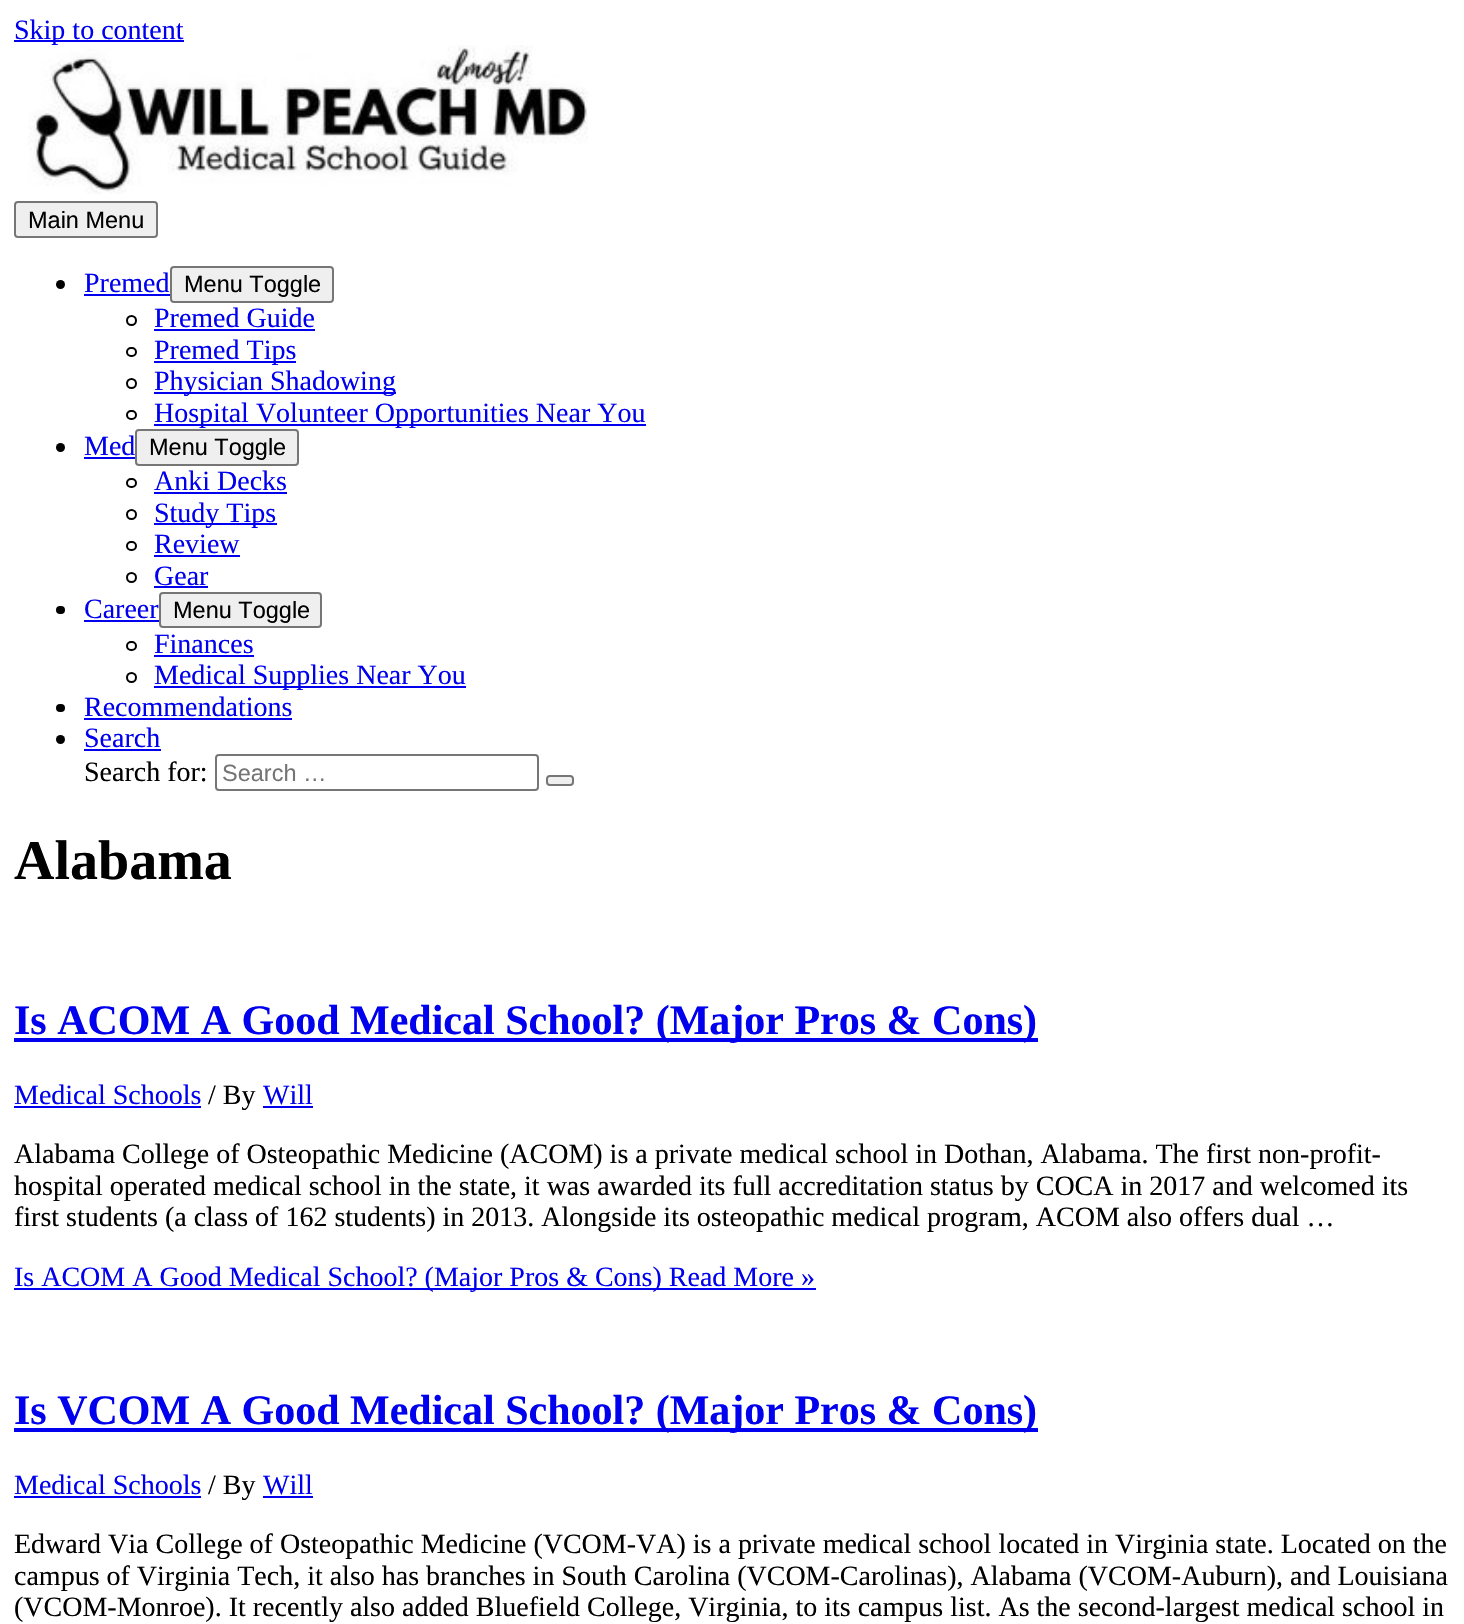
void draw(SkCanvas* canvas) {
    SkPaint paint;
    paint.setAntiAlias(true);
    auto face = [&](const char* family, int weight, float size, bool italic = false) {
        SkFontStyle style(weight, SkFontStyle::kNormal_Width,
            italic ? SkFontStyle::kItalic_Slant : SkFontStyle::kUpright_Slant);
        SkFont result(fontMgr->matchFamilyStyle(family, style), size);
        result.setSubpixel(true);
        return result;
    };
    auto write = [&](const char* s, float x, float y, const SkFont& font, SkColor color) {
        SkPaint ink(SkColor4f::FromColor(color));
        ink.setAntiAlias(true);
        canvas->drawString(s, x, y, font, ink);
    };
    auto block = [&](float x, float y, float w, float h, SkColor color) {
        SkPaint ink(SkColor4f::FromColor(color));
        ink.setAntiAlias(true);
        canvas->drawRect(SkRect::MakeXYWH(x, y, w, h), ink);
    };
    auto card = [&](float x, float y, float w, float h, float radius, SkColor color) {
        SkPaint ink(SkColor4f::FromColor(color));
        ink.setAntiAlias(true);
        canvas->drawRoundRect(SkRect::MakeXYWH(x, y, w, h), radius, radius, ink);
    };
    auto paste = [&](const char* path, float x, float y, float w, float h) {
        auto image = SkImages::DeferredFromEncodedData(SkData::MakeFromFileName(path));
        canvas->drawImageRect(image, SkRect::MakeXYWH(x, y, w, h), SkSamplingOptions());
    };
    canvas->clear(SK_ColorWHITE);
    block(14, 40, 170, 2, SkColorSetRGB(0, 0, 238));
    auto kFont1 = face("Liberation Serif", 400, 28);
    write("Skip to content", 14, 39, kFont1, SkColorSetRGB(0, 0, 238));
    paste("pic1.png", 28, 45, 560, 149);
    paint.setColor(SkColorSetRGB(239, 239, 239));
    canvas->drawRoundRect(SkRect::MakeXYWH(15, 202, 142, 35), 3, 3, paint);
    paint.setStyle(SkPaint::kStroke_Style);
    paint.setStrokeWidth(2);
    paint.setColor(SkColorSetRGB(118, 118, 118));
    canvas->drawRoundRect(SkRect::MakeXYWH(15, 202, 142, 35), 3, 3, paint);
    auto kFont2 = face("Liberation Sans", 400, 23.5f);
    write("Main Menu", 28, 228, kFont2, SK_ColorBLACK);
    paint.setStyle(SkPaint::kFill_Style);
    paint.setColor(SK_ColorBLACK);
    canvas->drawCircle(60.5f, 284.5f, 4.5f, paint);
    write("Premed", 84, 292, kFont1, SkColorSetRGB(0, 0, 238));
    block(84, 294, 86, 2, SkColorSetRGB(0, 0, 238));
    paint.setColor(SkColorSetRGB(239, 239, 239));
    canvas->drawRoundRect(SkRect::MakeXYWH(171, 267, 162, 35), 3, 3, paint);
    paint.setStyle(SkPaint::kStroke_Style);
    paint.setColor(SkColorSetRGB(118, 118, 118));
    canvas->drawRoundRect(SkRect::MakeXYWH(171, 267, 162, 35), 3, 3, paint);
    write("Menu Toggle", 184, 292, kFont2, SK_ColorBLACK);
    paint.setColor(SK_ColorBLACK);
    canvas->drawCircle(131.5f, 320.5f, 4.5f, paint);
    write("Premed Guide", 154, 327, kFont1, SkColorSetRGB(0, 0, 238));
    block(154, 329, 161, 2, SkColorSetRGB(0, 0, 238));
    canvas->drawRoundRect(SkRect::MakeXYWH(127, 348, 9, 8), 4, 4, paint);
    block(154, 361, 142, 2, SkColorSetRGB(0, 0, 238));
    write("Premed Tips", 154, 359, kFont1, SkColorSetRGB(0, 0, 238));
    canvas->drawCircle(131.5f, 383.5f, 4.5f, paint);
    block(154, 392, 242, 2, SkColorSetRGB(0, 0, 238));
    write("Physician Shadowing", 154, 390, kFont1, SkColorSetRGB(0, 0, 238));
    canvas->drawRoundRect(SkRect::MakeXYWH(127, 411, 9, 8), 4, 4, paint);
    block(154, 424, 492, 2, SkColorSetRGB(0, 0, 238));
    write("Hospital Volunteer Opportunities Near You", 154, 422, kFont1, SkColorSetRGB(0, 0, 238));
    paint.setStyle(SkPaint::kFill_Style);
    canvas->drawCircle(60.5f, 447.5f, 4.5f, paint);
    write("Med", 84, 455, kFont1, SkColorSetRGB(0, 0, 238));
    block(84, 457, 51, 2, SkColorSetRGB(0, 0, 238));
    paint.setColor(SkColorSetRGB(239, 239, 239));
    canvas->drawRoundRect(SkRect::MakeXYWH(136, 430, 162, 35), 3, 3, paint);
    paint.setStyle(SkPaint::kStroke_Style);
    paint.setColor(SkColorSetRGB(118, 118, 118));
    canvas->drawRoundRect(SkRect::MakeXYWH(136, 430, 162, 35), 3, 3, paint);
    write("Menu Toggle", 149, 455, kFont2, SK_ColorBLACK);
    paint.setColor(SK_ColorBLACK);
    canvas->drawRoundRect(SkRect::MakeXYWH(127, 479, 9, 8), 4, 4, paint);
    write("Anki Decks", 154, 490, kFont1, SkColorSetRGB(0, 0, 238));
    block(154, 492, 133, 2, SkColorSetRGB(0, 0, 238));
    canvas->drawCircle(131.5f, 514.5f, 4.5f, paint);
    block(154, 523, 123, 2, SkColorSetRGB(0, 0, 238));
    write("Study Tips", 154, 522, kFont1, SkColorSetRGB(0, 0, 238));
    canvas->drawRoundRect(SkRect::MakeXYWH(127, 542, 9, 8), 4, 4, paint);
    write("Review", 154, 553, kFont1, SkColorSetRGB(0, 0, 238));
    block(154, 555, 86, 2, SkColorSetRGB(0, 0, 238));
    canvas->drawCircle(131.5f, 577.5f, 4.5f, paint);
    write("Gear", 154, 585, kFont1, SkColorSetRGB(0, 0, 238));
    block(154, 586, 54, 2, SkColorSetRGB(0, 0, 238));
    card(56, 606, 9, 8, 4, SK_ColorBLACK);
    write("Career", 84, 618, kFont1, SkColorSetRGB(0, 0, 238));
    block(84, 620, 75, 2, SkColorSetRGB(0, 0, 238));
    paint.setStyle(SkPaint::kFill_Style);
    paint.setColor(SkColorSetRGB(239, 239, 239));
    canvas->drawRoundRect(SkRect::MakeXYWH(160, 593, 161, 34), 3, 3, paint);
    paint.setStyle(SkPaint::kStroke_Style);
    paint.setColor(SkColorSetRGB(118, 118, 118));
    canvas->drawRoundRect(SkRect::MakeXYWH(160, 593, 161, 34), 3, 3, paint);
    write("Menu Toggle", 173, 618, kFont2, SK_ColorBLACK);
    paint.setColor(SK_ColorBLACK);
    canvas->drawRoundRect(SkRect::MakeXYWH(127, 642, 9, 8), 4, 4, paint);
    write("Finances", 154, 653, kFont1, SkColorSetRGB(0, 0, 238));
    block(154, 655, 100, 2, SkColorSetRGB(0, 0, 238));
    canvas->drawCircle(131.5f, 677.5f, 4.5f, paint);
    block(154, 686, 312, 2, SkColorSetRGB(0, 0, 238));
    write("Medical Supplies Near You", 154, 684, kFont1, SkColorSetRGB(0, 0, 238));
    card(56, 704, 9, 8, 4, SK_ColorBLACK);
    write("Recommendations", 84, 716, kFont1, SkColorSetRGB(0, 0, 238));
    block(84, 718, 208, 2, SkColorSetRGB(0, 0, 238));
    paint.setStyle(SkPaint::kFill_Style);
    canvas->drawCircle(60.5f, 739.5f, 4.5f, paint);
    write("Search", 84, 747, kFont1, SkColorSetRGB(0, 0, 238));
    block(84, 749, 77, 2, SkColorSetRGB(0, 0, 238));
    write("Search for:", 84, 781, kFont1, SK_ColorBLACK);
    paint.setStyle(SkPaint::kStroke_Style);
    paint.setColor(SkColorSetRGB(118, 118, 118));
    canvas->drawRoundRect(SkRect::MakeXYWH(216, 755, 322, 35), 3, 3, paint);
    write("Search …", 222, 781, kFont2, SkColorSetRGB(117, 117, 117));
    paint.setStyle(SkPaint::kFill_Style);
    paint.setColor(SkColorSetRGB(239, 239, 239));
    canvas->drawRoundRect(SkRect::MakeXYWH(547, 776, 26, 9), 3, 3, paint);
    paint.setStyle(SkPaint::kStroke_Style);
    paint.setColor(SkColorSetRGB(118, 118, 118));
    canvas->drawRoundRect(SkRect::MakeXYWH(547, 776, 26, 9), 3, 3, paint);
    auto kFont3 = face("Liberation Serif", 700, 56);
    write("Alabama", 14, 879, kFont3, SK_ColorBLACK);
    block(14, 1038, 1024, 4, SkColorSetRGB(0, 0, 238));
    auto kFont4 = face("Liberation Serif", 700, 42);
    write("Is ACOM A Good Medical School? (Major Pros & Cons)", 14, 1034, kFont4, SkColorSetRGB(0, 0, 238));
    write("Medical Schools", 14, 1104, kFont1, SkColorSetRGB(0, 0, 238));
    block(14, 1106, 187, 2, SkColorSetRGB(0, 0, 238));
    write("/ By", 208, 1104, kFont1, SK_ColorBLACK);
    write("Will", 263, 1104, kFont1, SkColorSetRGB(0, 0, 238));
    block(263, 1106, 50, 2, SkColorSetRGB(0, 0, 238));
    write("Alabama College of Osteopathic Medicine (ACOM) is a private medical school in Dothan, Alabama. The first non-profit-", 14, 1163, kFont1, SK_ColorBLACK);
    write("hospital operated medical school in the state, it was awarded its full accreditation status by COCA in 2017 and welcomed its", 14, 1195, kFont1, SK_ColorBLACK);
    write("first students (a class of 162 students) in 2013. Alongside its osteopathic medical program, ACOM also offers dual …", 14, 1226, kFont1, SK_ColorBLACK);
    block(14, 1288, 802, 2, SkColorSetRGB(0, 0, 238));
    write("Is ACOM A Good Medical School? (Major Pros & Cons) Read More »", 14, 1286, kFont1, SkColorSetRGB(0, 0, 238));
    block(14, 1428, 1024, 4, SkColorSetRGB(0, 0, 238));
    write("Is VCOM A Good Medical School? (Major Pros & Cons)", 14, 1424, kFont4, SkColorSetRGB(0, 0, 238));
    write("Medical Schools", 14, 1494, kFont1, SkColorSetRGB(0, 0, 238));
    block(14, 1496, 187, 2, SkColorSetRGB(0, 0, 238));
    write("/ By", 208, 1494, kFont1, SK_ColorBLACK);
    write("Will", 263, 1494, kFont1, SkColorSetRGB(0, 0, 238));
    block(263, 1496, 50, 2, SkColorSetRGB(0, 0, 238));
    write("Edward Via College of Osteopathic Medicine (VCOM-VA) is a private medical school located in Virginia state. Located on the", 14, 1553, kFont1, SK_ColorBLACK);
    write("campus of Virginia Tech, it also has branches in South Carolina (VCOM-Carolinas), Alabama (VCOM-Auburn), and Louisiana", 14, 1585, kFont1, SK_ColorBLACK);
    write("(VCOM-Monroe). It recently also added Bluefield College, Virginia, to its campus list. As the second-largest medical school in", 14, 1616, kFont1, SK_ColorBLACK);
}
